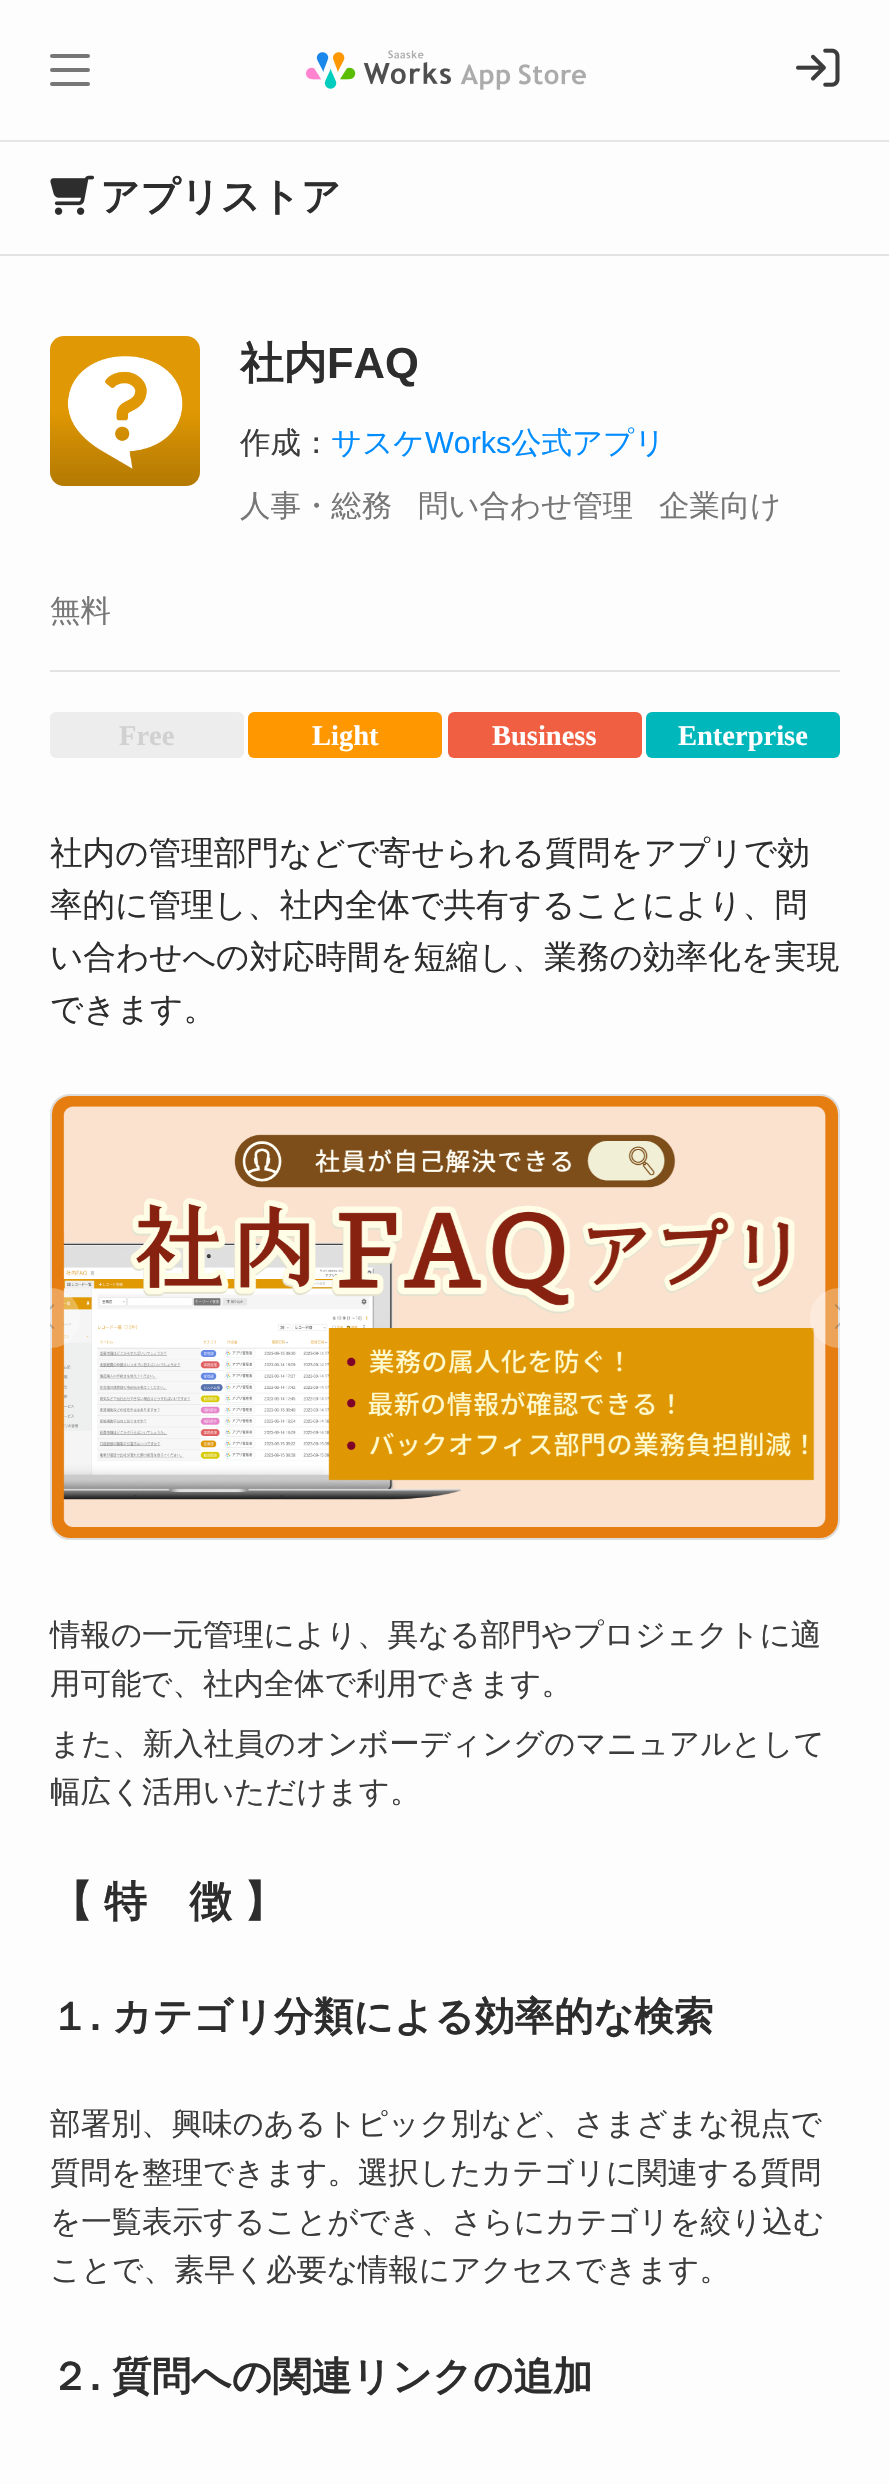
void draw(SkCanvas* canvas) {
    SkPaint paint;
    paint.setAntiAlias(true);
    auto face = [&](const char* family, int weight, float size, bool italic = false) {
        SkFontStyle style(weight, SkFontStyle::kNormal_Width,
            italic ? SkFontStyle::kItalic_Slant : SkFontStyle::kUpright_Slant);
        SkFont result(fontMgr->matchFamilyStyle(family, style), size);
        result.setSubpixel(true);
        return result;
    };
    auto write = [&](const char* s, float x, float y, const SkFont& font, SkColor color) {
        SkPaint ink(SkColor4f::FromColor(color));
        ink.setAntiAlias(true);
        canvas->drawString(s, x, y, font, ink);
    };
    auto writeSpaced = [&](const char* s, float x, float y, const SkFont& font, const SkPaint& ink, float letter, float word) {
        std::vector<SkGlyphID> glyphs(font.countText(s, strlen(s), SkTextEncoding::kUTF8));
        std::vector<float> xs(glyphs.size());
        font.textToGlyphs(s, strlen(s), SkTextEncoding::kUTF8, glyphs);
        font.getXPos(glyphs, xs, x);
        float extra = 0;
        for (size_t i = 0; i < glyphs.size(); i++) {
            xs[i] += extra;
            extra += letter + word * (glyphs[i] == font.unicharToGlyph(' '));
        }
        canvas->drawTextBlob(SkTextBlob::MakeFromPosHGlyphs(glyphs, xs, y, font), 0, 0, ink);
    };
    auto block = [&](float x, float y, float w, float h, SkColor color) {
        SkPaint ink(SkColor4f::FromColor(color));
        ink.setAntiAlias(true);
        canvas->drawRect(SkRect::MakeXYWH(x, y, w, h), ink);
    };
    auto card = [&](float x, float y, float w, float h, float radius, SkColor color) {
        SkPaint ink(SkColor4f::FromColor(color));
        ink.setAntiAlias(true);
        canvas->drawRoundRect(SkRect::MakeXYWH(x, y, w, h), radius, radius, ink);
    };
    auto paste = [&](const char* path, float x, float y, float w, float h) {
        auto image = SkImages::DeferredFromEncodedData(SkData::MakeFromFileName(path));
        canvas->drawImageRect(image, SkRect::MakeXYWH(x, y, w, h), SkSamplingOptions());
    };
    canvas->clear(SkColorSetRGB(253, 253, 253));
    block(0, 140, 889, 2, SkColorSetRGB(229, 229, 229));
    card(50, 68, 40, 4, 2, SkColorSetRGB(119, 119, 119));
    card(50, 54, 40, 4, 2, SkColorSetRGB(119, 119, 119));
    card(50, 82, 40, 4, 2, SkColorSetRGB(119, 119, 119));
    paste("pic1.png", 306, 50, 280, 40);
    paste("pic2.png", 796, 48, 44, 39);
    block(0, 254, 889, 2, SkColorSetRGB(227, 227, 227));
    paste("pic3.png", 50, 175, 44, 40);
    auto kFont1 = face("WenQuanYi Zen Hei", 700, 39.25f);
    write("アプリストア", 100, 210, kFont1, SkColorSetRGB(45, 45, 45));
    paste("pic4.png", 50, 336, 150, 150);
    auto kFont2 = face("WenQuanYi Zen Hei", 700, 43.5f);
    write("社内", 240, 378, kFont2, SkColorSetRGB(45, 45, 45));
    auto kFont3 = face("Liberation Sans", 700, 43.5f);
    write("FAQ", 327, 378, kFont3, SkColorSetRGB(45, 45, 45));
    auto kFont4 = face("WenQuanYi Zen Hei", 500, 30.45f);
    write("作成：", 240, 453, kFont4, SkColorSetRGB(60, 60, 60));
    write("サスケ", 331, 453, kFont4, SkColorSetRGB(1, 140, 255));
    auto kFont5 = face("Liberation Sans", 400, 30.45f);
    write("Works", 425, 453, kFont5, SkColorSetRGB(1, 140, 255));
    write("公式アプリ", 511, 453, kFont4, SkColorSetRGB(1, 140, 255));
    write("人事・総務", 240, 516, kFont4, SkColorSetRGB(119, 119, 119));
    write("問い合わせ管理", 418, 516, kFont4, SkColorSetRGB(119, 119, 119));
    write("企業向け", 659, 516, kFont4, SkColorSetRGB(119, 119, 119));
    write("無料", 50, 621, kFont4, SkColorSetRGB(119, 119, 119));
    block(50, 670, 790, 2, SkColorSetRGB(227, 227, 227));
    card(50, 712, 194, 46, 6, SkColorSetRGB(237, 237, 237));
    auto kFont6 = face("Liberation Serif", 700, 28.5f);
    write("Free", 119, 745, kFont6, SkColorSetRGB(209, 209, 209));
    card(248, 712, 194, 46, 6, SkColorSetRGB(255, 152, 0));
    write("Light", 312, 745, kFont6, SK_ColorWHITE);
    card(448, 712, 194, 46, 6, SkColorSetRGB(240, 95, 65));
    write("Business", 492, 745, kFont6, SK_ColorWHITE);
    card(646, 712, 194, 46, 6, SkColorSetRGB(0, 183, 188));
    write("Enterprise", 678, 745, kFont6, SK_ColorWHITE);
    auto kFont7 = face("WenQuanYi Zen Hei", 500, 32.6f);
    write("社内の管理部門などで寄せられる質問をアプリで効", 50, 864, kFont7, SkColorSetRGB(45, 45, 45));
    write("率的に管理し、社内全体で共有することにより、問", 50, 916, kFont7, SkColorSetRGB(45, 45, 45));
    write("い合わせへの対応時間を短縮し、業務の効率化を実現", 50, 968, kFont7, SkColorSetRGB(45, 45, 45));
    write("できます。", 50, 1020, kFont7, SkColorSetRGB(45, 45, 45));
    paint.setStyle(SkPaint::kStroke_Style);
    paint.setStrokeWidth(2);
    paint.setColor(SkColorSetRGB(221, 221, 221));
    canvas->drawRoundRect(SkRect::MakeXYWH(51, 1095, 788, 444), 19, 19, paint);
    paste("pic5.png", 52, 1096, 786, 442);
    paint.setStyle(SkPaint::kFill_Style);
    paint.setColor(SkColorSetARGB(77, 255, 255, 255));
    canvas->drawPath(SkPathBuilder().moveTo(50, 1288).cubicTo(66.5f, 1288, 80, 1301.5f, 80, 1318).cubicTo(80, 1334.5f, 66.5f, 1348, 50, 1348).close().detach(), paint);
    paste("pic6.png", 50, 1304, 5, 25);
    canvas->drawPath(SkPathBuilder().moveTo(840, 1288).lineTo(840, 1348).cubicTo(823.5f, 1348, 810, 1334.5f, 810, 1318).cubicTo(810, 1301.5f, 823.5f, 1288, 840, 1288).close().detach(), paint);
    paste("pic7.png", 834, 1304, 6, 25);
    write("情報の一元管理により、異なる部門やプロジェクトに適", 50, 1645, kFont4, SkColorSetRGB(60, 60, 60));
    write("用可能で、社内全体で利用できます。", 50, 1694, kFont4, SkColorSetRGB(60, 60, 60));
    write("また、新入社員のオンボーディングのマニュアルとして", 50, 1754, kFont4, SkColorSetRGB(60, 60, 60));
    write("幅広く活用いただけます。", 50, 1802, kFont4, SkColorSetRGB(60, 60, 60));
    auto kFont8 = face("WenQuanYi Zen Hei", 700, 42.5f);
    paint.setColor(SkColorSetRGB(45, 45, 45));
    writeSpaced("【 特　徴 】", 50, 1916, kFont8, paint, 0, -1);
    auto kFont9 = face("WenQuanYi Zen Hei", 700, 39.6f);
    write("１", 50, 2030, kFont9, SkColorSetRGB(45, 45, 45));
    auto kFont10 = face("Liberation Sans", 700, 39.6f);
    write(".", 90, 2030, kFont10, SkColorSetRGB(45, 45, 45));
    write("カテゴリ分類による効率的な検索", 112, 2030, kFont9, SkColorSetRGB(45, 45, 45));
    write("部署別、興味のあるトピック別など、さまざまな視点で", 50, 2134, kFont4, SkColorSetRGB(60, 60, 60));
    write("質問を整理できます。選択したカテゴリに関連する質問", 50, 2183, kFont4, SkColorSetRGB(60, 60, 60));
    write("を一覧表示することができ、さらにカテゴリを絞り込む", 50, 2232, kFont4, SkColorSetRGB(60, 60, 60));
    write("ことで、素早く必要な情報にアクセスできます。", 50, 2280, kFont4, SkColorSetRGB(60, 60, 60));
    write("２", 50, 2390, kFont9, SkColorSetRGB(45, 45, 45));
    write(".", 90, 2390, kFont10, SkColorSetRGB(45, 45, 45));
    write("質問への関連リンクの追加", 112, 2390, kFont9, SkColorSetRGB(45, 45, 45));
}
